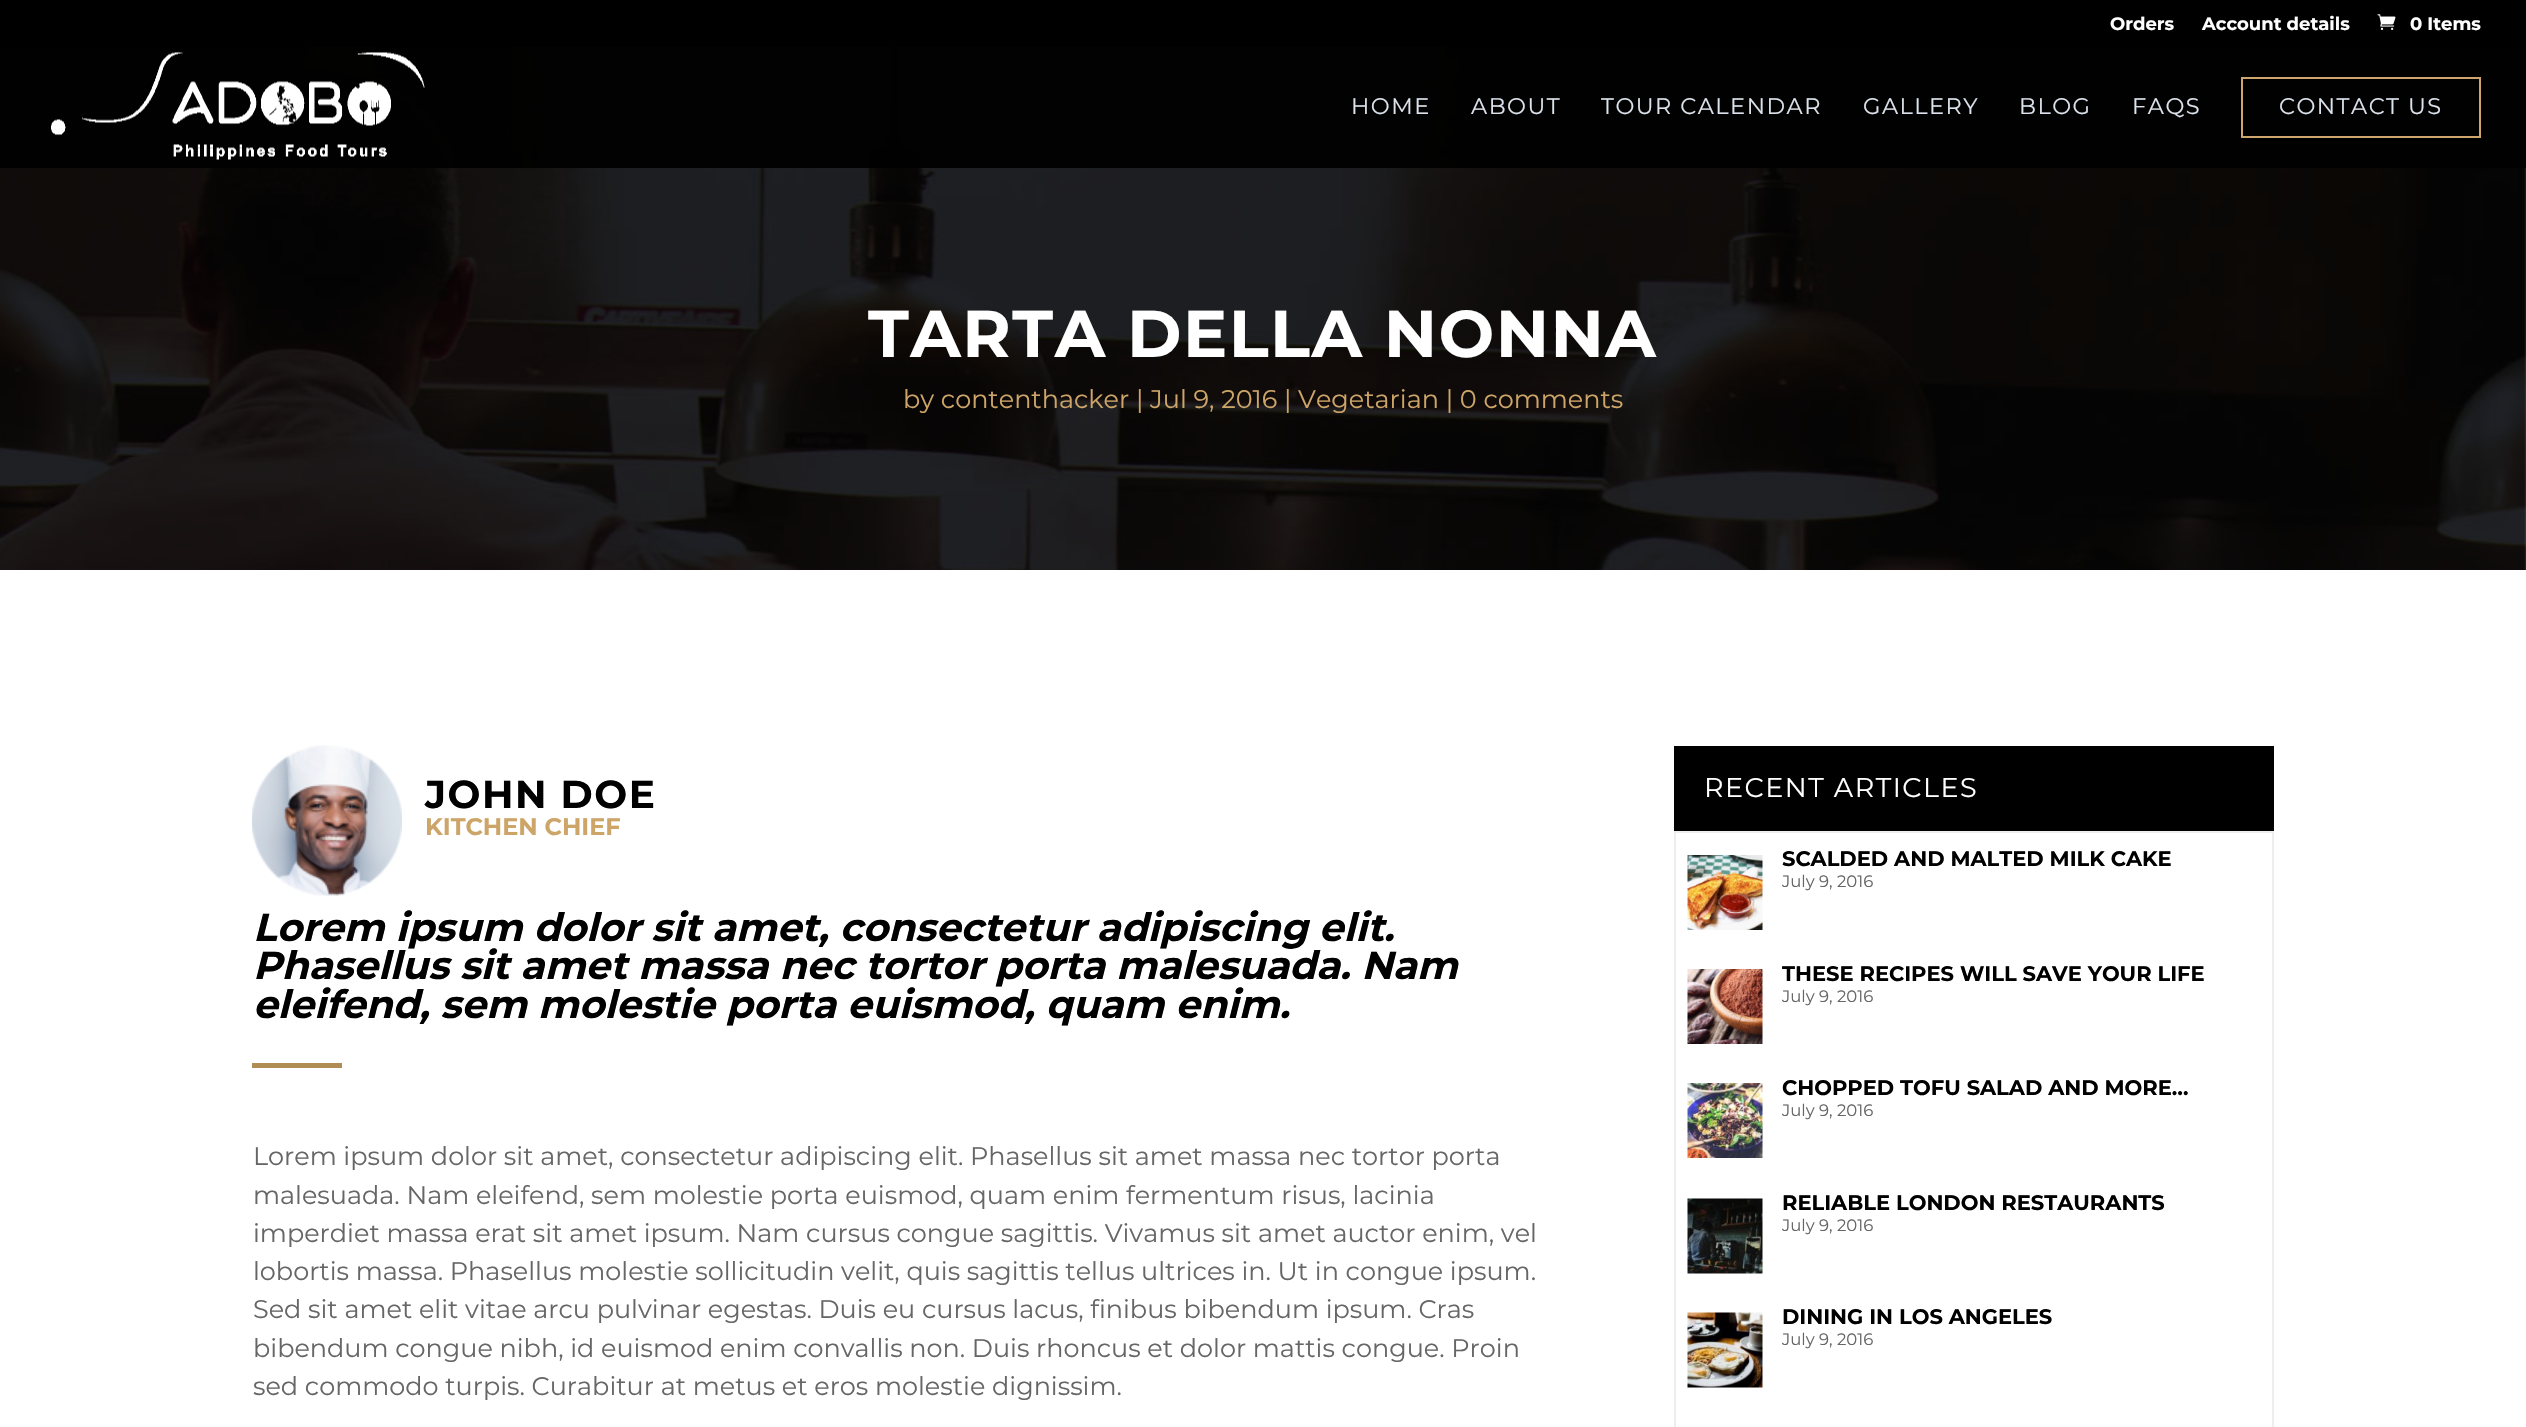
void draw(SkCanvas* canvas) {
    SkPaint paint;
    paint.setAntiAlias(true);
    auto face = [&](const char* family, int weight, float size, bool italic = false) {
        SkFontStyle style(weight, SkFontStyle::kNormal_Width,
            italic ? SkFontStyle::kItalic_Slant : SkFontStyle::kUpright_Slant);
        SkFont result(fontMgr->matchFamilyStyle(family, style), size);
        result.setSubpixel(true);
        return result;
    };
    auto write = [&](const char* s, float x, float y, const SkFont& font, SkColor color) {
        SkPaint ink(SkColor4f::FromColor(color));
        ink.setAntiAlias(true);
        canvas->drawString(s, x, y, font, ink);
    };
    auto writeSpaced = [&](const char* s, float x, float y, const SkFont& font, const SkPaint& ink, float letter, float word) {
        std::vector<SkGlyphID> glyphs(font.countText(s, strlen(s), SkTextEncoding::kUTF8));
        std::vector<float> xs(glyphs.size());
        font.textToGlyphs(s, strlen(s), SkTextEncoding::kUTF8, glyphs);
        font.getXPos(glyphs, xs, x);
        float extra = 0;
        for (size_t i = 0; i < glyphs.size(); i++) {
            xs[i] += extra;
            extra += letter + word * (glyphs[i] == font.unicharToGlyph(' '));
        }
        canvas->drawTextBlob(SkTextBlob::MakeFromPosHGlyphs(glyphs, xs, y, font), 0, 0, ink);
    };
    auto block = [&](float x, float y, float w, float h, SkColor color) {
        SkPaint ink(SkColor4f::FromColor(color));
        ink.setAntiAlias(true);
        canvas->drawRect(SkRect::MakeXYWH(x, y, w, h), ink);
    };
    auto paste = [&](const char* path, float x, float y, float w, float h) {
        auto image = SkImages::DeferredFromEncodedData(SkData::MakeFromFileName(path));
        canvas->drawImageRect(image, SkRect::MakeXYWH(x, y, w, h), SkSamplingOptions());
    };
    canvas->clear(SK_ColorWHITE);
    block(0, 0, 2526, 47, SK_ColorBLACK);
    auto kFont1 = face("Montserrat", 100, 18);
    write("Orders", 2110, 30, kFont1, SK_ColorWHITE);
    write("Account details", 2202, 30, kFont1, SK_ColorWHITE);
    paste("pic1.png", 2377, 14, 19, 16);
    write("0 Items", 2410, 30, kFont1, SK_ColorWHITE);
    paste("pic3.png", 0, 47, 2526, 523);
    block(0, 47, 2526, 121, SkColorSetARGB(240, 0, 0, 0));
    paste("pic2.png", 51, 52, 374, 108);
    auto kFont2 = face("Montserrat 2", 100, 22.5f);
    paint.setColor(SkColorSetRGB(220, 227, 236));
    writeSpaced("HOME", 1351, 114, kFont2, paint, 1.5f, 0);
    writeSpaced("ABOUT", 1471, 114, kFont2, paint, 1.5f, 0);
    writeSpaced("TOUR CALENDAR", 1601, 114, kFont2, paint, 1.5f, 0);
    writeSpaced("GALLERY", 1863, 114, kFont2, paint, 1.5f, 0);
    writeSpaced("BLOG", 2019, 114, kFont2, paint, 1.5f, 0);
    writeSpaced("FAQS", 2132, 114, kFont2, paint, 1.5f, 0);
    paint.setStyle(SkPaint::kStroke_Style);
    paint.setStrokeWidth(2);
    paint.setColor(SkColorSetRGB(206, 165, 109));
    canvas->drawRect(SkRect::MakeXYWH(2242, 78, 238, 59), paint);
    paint.setStyle(SkPaint::kFill_Style);
    paint.setColor(SkColorSetRGB(220, 227, 236));
    writeSpaced("CONTACT US", 2279, 114, kFont2, paint, 1.5f, 0);
    auto kFont3 = face("Montserrat", 100, 66);
    paint.setColor(SK_ColorWHITE);
    writeSpaced("TARTA DELLA NONNA", 868, 357, kFont3, paint, 1.5f, 0);
    auto kFont4 = face("Montserrat 2", 100, 25.5f);
    write("by contenthacker | Jul 9, 2016 | Vegetarian | 0 comments", 903, 408, kFont4, SkColorSetRGB(205, 165, 104));
    paste("pic4.png", 252, 745, 150, 151);
    auto kFont5 = face("Montserrat", 100, 39);
    paint.setColor(SK_ColorBLACK);
    writeSpaced("JOHN DOE", 425, 808, kFont5, paint, 1.5f, 0);
    auto kFont6 = face("Montserrat", 100, 24);
    write("KITCHEN CHIEF", 425, 835, kFont6, SkColorSetRGB(205, 165, 104));
    auto kFont7 = face("Montserrat", 100, 39, true);
    write("Lorem ipsum dolor sit amet, consectetur adipiscing elit.", 253, 941, kFont7, SK_ColorBLACK);
    write("Phasellus sit amet massa nec tortor porta malesuada. Nam", 253, 979, kFont7, SK_ColorBLACK);
    write("eleifend, sem molestie porta euismod, quam enim.", 253, 1018, kFont7, SK_ColorBLACK);
    block(252, 1063, 90, 5, SkColorSetRGB(175, 141, 85));
    write("Lorem ipsum dolor sit amet, consectetur adipiscing elit. Phasellus sit amet massa nec tortor porta", 253, 1165, kFont4, SkColorSetRGB(102, 102, 102));
    write("malesuada. Nam eleifend, sem molestie porta euismod, quam enim fermentum risus, lacinia", 253, 1204, kFont4, SkColorSetRGB(102, 102, 102));
    write("imperdiet massa erat sit amet ipsum. Nam cursus congue sagittis. Vivamus sit amet auctor enim, vel", 253, 1242, kFont4, SkColorSetRGB(102, 102, 102));
    write("lobortis massa. Phasellus molestie sollicitudin velit, quis sagittis tellus ultrices in. Ut in congue ipsum.", 253, 1280, kFont4, SkColorSetRGB(102, 102, 102));
    write("Sed sit amet elit vitae arcu pulvinar egestas. Duis eu cursus lacus, finibus bibendum ipsum. Cras", 253, 1318, kFont4, SkColorSetRGB(102, 102, 102));
    write("bibendum congue nibh, id euismod enim convallis non. Duis rhoncus et dolor mattis congue. Proin", 253, 1357, kFont4, SkColorSetRGB(102, 102, 102));
    write("sed commodo turpis. Curabitur at metus et eros molestie dignissim.", 253, 1395, kFont4, SkColorSetRGB(102, 102, 102));
    block(1674, 746, 600, 85, SK_ColorBLACK);
    auto kFont8 = face("Montserrat 2", 100, 27);
    paint.setColor(SK_ColorWHITE);
    writeSpaced("RECENT ARTICLES", 1704, 797, kFont8, paint, 1.5f, 0);
    paint.setStyle(SkPaint::kStroke_Style);
    paint.setColor(SkColorSetRGB(238, 238, 238));
    canvas->drawRect(SkRect::MakeXYWH(1675, 832, 598, 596), paint);
    paste("pic5.png", 1687, 855, 76, 75);
    auto kFont9 = face("Montserrat", 100, 21);
    write("SCALDED AND MALTED MILK CAKE", 1782, 866, kFont9, SK_ColorBLACK);
    auto kFont10 = face("Montserrat 2", 100, 16.5f);
    write("July 9, 2016", 1782, 887, kFont10, SkColorSetRGB(102, 102, 102));
    paste("pic6.png", 1687, 969, 76, 75);
    write("THESE RECIPES WILL SAVE YOUR LIFE", 1782, 981, kFont9, SK_ColorBLACK);
    write("July 9, 2016", 1782, 1002, kFont10, SkColorSetRGB(102, 102, 102));
    paste("pic7.png", 1687, 1083, 76, 75);
    write("CHOPPED TOFU SALAD AND MORE…", 1782, 1095, kFont9, SK_ColorBLACK);
    write("July 9, 2016", 1782, 1116, kFont10, SkColorSetRGB(102, 102, 102));
    paste("pic8.png", 1687, 1198, 76, 76);
    write("RELIABLE LONDON RESTAURANTS", 1782, 1210, kFont9, SK_ColorBLACK);
    write("July 9, 2016", 1782, 1231, kFont10, SkColorSetRGB(102, 102, 102));
    paste("pic9.png", 1687, 1312, 76, 76);
    write("DINING IN LOS ANGELES", 1782, 1324, kFont9, SK_ColorBLACK);
    write("July 9, 2016", 1782, 1345, kFont10, SkColorSetRGB(102, 102, 102));
}
